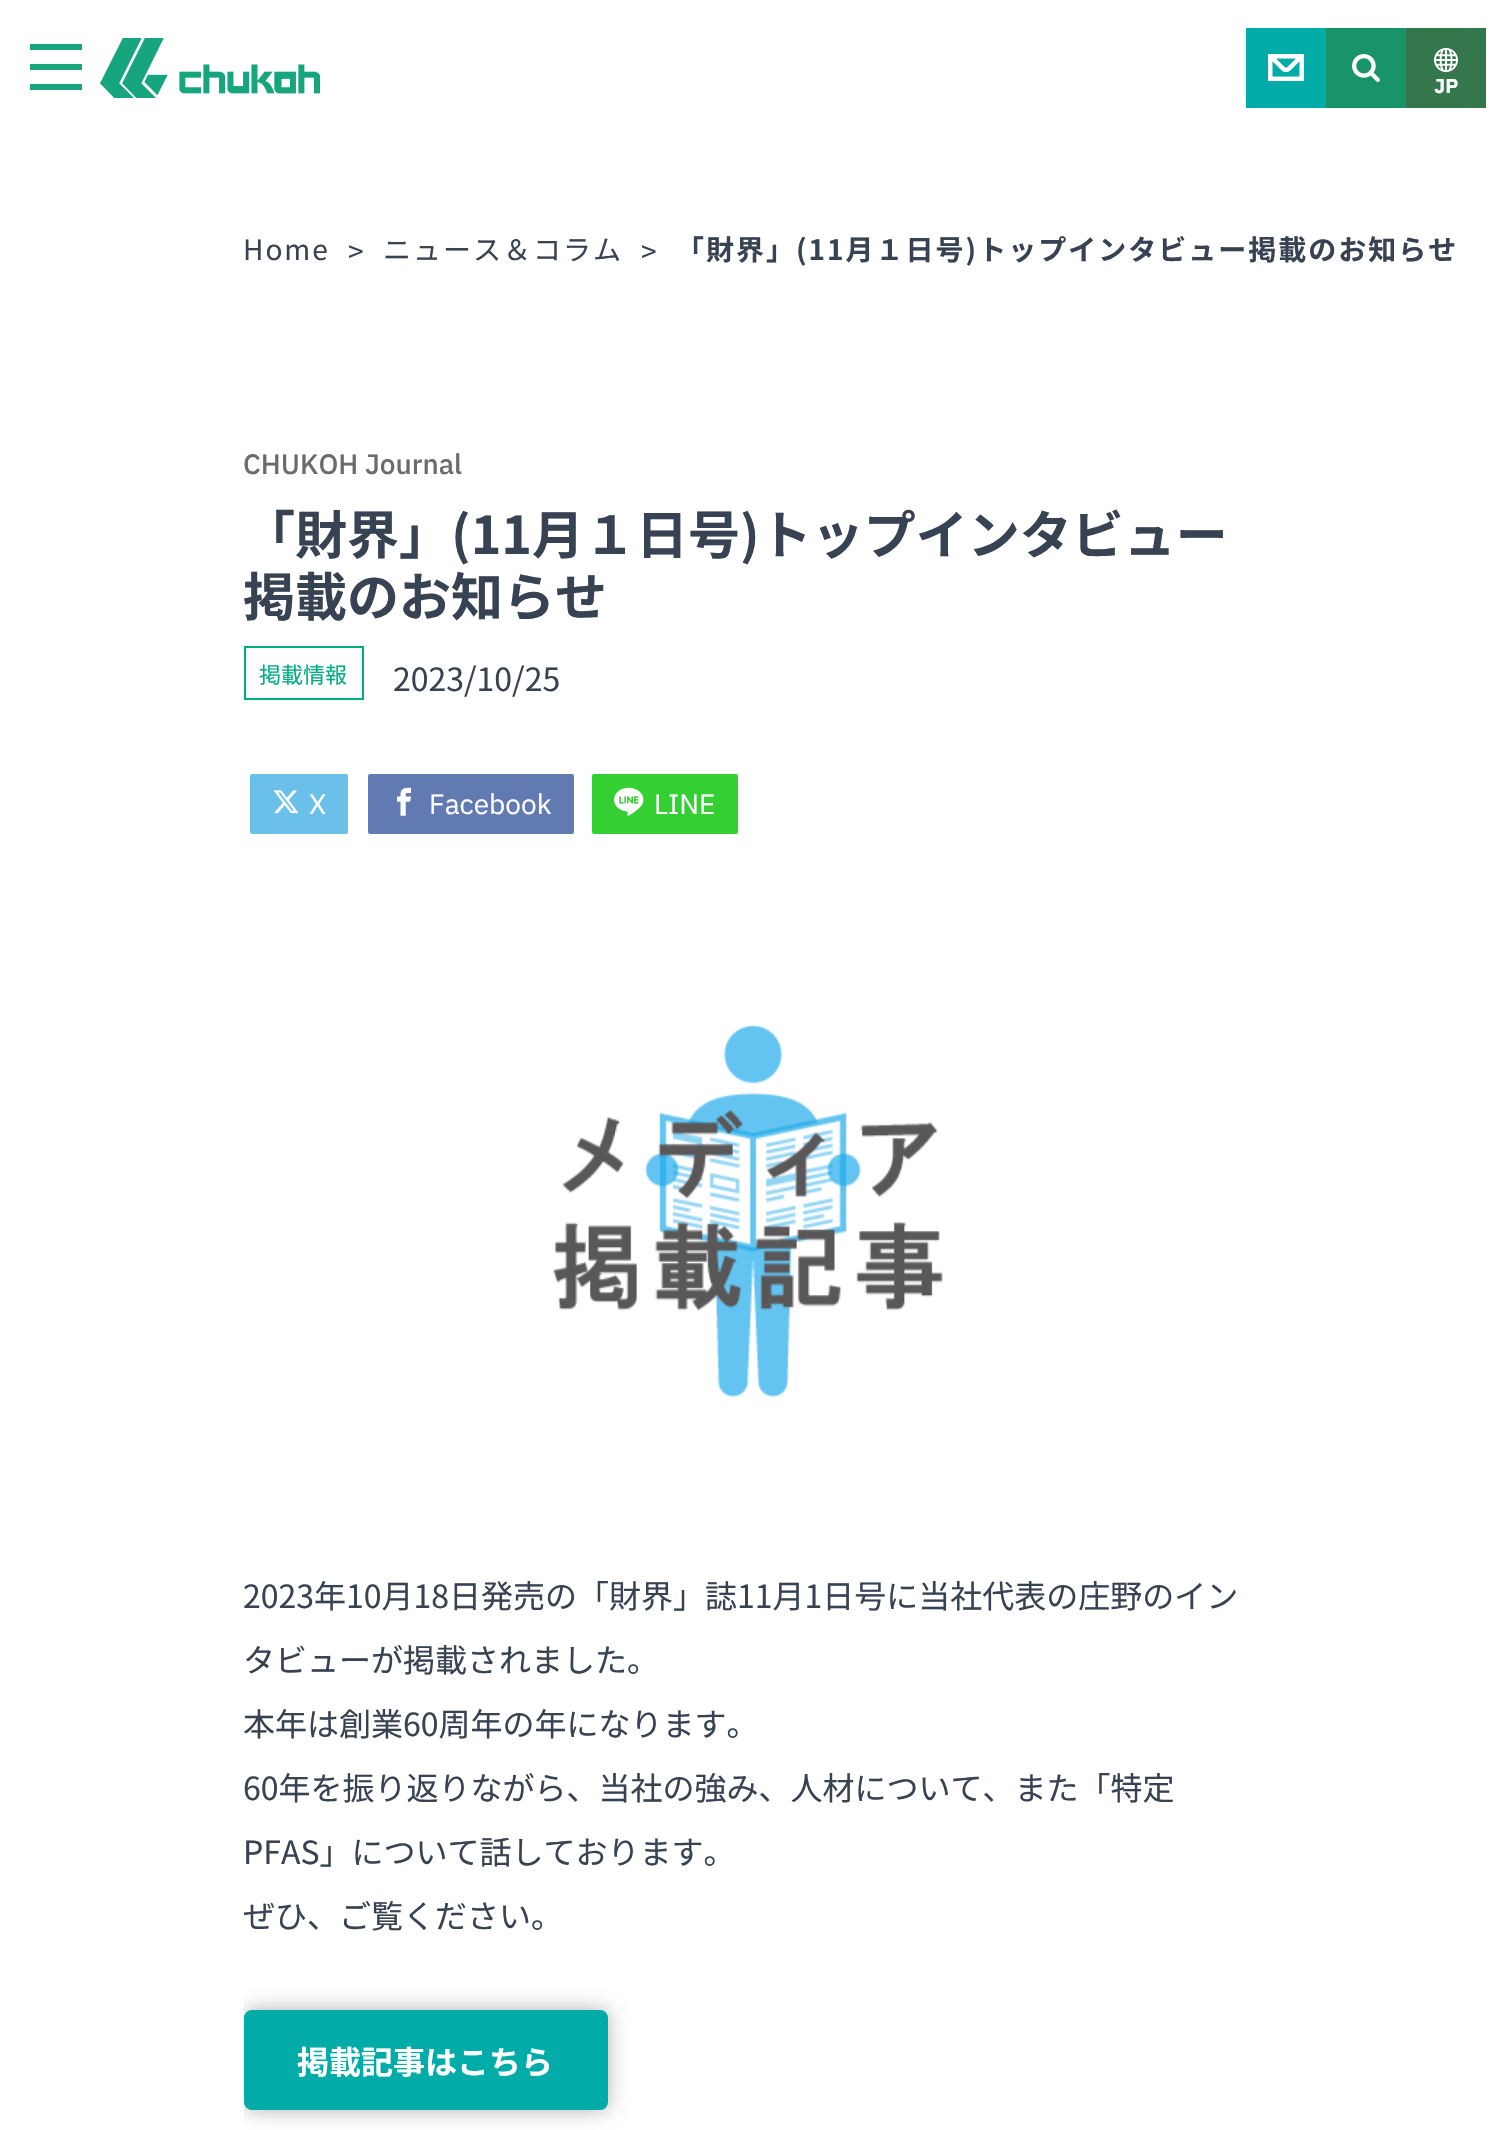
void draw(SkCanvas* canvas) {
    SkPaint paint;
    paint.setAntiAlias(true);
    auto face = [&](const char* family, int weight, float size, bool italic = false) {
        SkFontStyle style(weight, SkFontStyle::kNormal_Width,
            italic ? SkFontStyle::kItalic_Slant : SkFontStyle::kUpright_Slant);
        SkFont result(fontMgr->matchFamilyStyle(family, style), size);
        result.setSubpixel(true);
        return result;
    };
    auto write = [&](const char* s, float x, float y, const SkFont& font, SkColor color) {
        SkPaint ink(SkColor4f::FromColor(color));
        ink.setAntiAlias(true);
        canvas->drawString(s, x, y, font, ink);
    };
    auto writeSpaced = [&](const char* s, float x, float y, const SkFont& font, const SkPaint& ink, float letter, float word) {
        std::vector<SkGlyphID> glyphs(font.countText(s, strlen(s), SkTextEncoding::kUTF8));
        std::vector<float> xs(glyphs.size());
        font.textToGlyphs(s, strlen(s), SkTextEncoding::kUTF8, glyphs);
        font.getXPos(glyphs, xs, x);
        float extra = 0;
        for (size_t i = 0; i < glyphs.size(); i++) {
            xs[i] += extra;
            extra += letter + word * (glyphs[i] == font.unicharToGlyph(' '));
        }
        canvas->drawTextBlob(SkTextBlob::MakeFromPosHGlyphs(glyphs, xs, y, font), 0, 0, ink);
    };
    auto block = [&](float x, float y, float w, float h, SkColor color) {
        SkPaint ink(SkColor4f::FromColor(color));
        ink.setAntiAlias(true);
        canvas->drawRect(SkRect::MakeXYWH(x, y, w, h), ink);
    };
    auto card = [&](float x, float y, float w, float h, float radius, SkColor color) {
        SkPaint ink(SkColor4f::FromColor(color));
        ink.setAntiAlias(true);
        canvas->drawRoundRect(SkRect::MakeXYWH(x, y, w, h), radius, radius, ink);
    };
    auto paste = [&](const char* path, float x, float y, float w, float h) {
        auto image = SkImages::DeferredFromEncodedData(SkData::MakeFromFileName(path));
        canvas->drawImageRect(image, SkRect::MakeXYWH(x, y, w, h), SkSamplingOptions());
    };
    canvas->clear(SK_ColorWHITE);
    block(30, 44, 52, 6, SkColorSetRGB(23, 165, 126));
    block(30, 64, 52, 6, SkColorSetRGB(23, 165, 126));
    block(30, 84, 52, 6, SkColorSetRGB(23, 165, 126));
    paste("pic1.png", 100, 38, 220, 60);
    block(1246, 28, 80, 80, SkColorSetRGB(1, 171, 167));
    paste("pic2.png", 1268, 54, 36, 27);
    block(1326, 28, 80, 80, SkColorSetRGB(24, 148, 104));
    paste("pic3.png", 1352, 54, 28, 28);
    block(1406, 28, 80, 80, SkColorSetRGB(53, 119, 77));
    paste("pic4.png", 1434, 48, 24, 24);
    auto kFont1 = face("IBM Plex Sans", 700, 20);
    write("JP", 1434, 93, kFont1, SK_ColorWHITE);
    auto kFont2 = face("Noto Sans JP", 400, 28);
    paint.setColor(SkColorSetRGB(55, 66, 82));
    writeSpaced("Home", 243, 260, kFont2, paint, 2, 0);
    writeSpaced(">", 348, 262, kFont2, paint, 2, 0);
    writeSpaced("ニュース＆コラム", 383, 260, kFont2, paint, 2, 0);
    writeSpaced(">", 641, 262, kFont2, paint, 2, 0);
    auto kFont3 = face("Noto Sans JP", 700, 28);
    writeSpaced("「財界」(11月１日号)トップインタビュー掲載のお知らせ", 676, 260, kFont3, paint, 2, 0);
    auto kFont4 = face("IBM Plex Sans", 500, 28);
    write("CHUKOH Journal", 243, 474, kFont4, SkColorSetRGB(107, 107, 107));
    auto kFont5 = face("Noto Sans JP", 700, 52);
    write("「財界」(11月１日号)トップインタビュー", 243, 554, kFont5, SkColorSetRGB(55, 66, 82));
    write("掲載のお知らせ", 243, 616, kFont5, SkColorSetRGB(55, 66, 82));
    paint.setStyle(SkPaint::kStroke_Style);
    paint.setStrokeWidth(2);
    paint.setColor(SkColorSetRGB(0, 173, 130));
    canvas->drawRect(SkRect::MakeXYWH(245, 647, 118, 52), paint);
    auto kFont6 = face("Noto Sans JP", 400, 22);
    write("掲載情報", 259, 683, kFont6, SkColorSetRGB(0, 173, 130));
    auto kFont7 = face("Noto Sans JP", 400, 32);
    write("2023/10/25", 393, 691, kFont7, SkColorSetRGB(55, 66, 82));
    card(250, 774, 98, 60, 2, SkColorSetRGB(106, 192, 233));
    paste("pic5.png", 273, 790, 26, 24);
    auto kFont8 = face("IBM Plex Sans", 400, 28);
    write("X", 309, 814, kFont8, SK_ColorWHITE);
    card(368, 774, 206, 60, 2, SkColorSetRGB(97, 122, 178));
    paste("pic6.png", 397, 787, 14, 29);
    write("Facebook", 429, 814, kFont8, SK_ColorWHITE);
    card(592, 774, 146, 60, 2, SkColorSetRGB(51, 207, 51));
    paste("pic7.png", 614, 787, 30, 29);
    write("LINE", 654, 814, kFont8, SK_ColorWHITE);
    paste("pic8.png", 553, 1024, 390, 374);
    write("2023年10月18日発売の「財界」誌11月1日号に当社代表の庄野のイン", 243, 1608, kFont7, SkColorSetRGB(55, 66, 82));
    write("タビューが掲載されました。", 243, 1672, kFont7, SkColorSetRGB(55, 66, 82));
    write("本年は創業60周年の年になります。", 243, 1736, kFont7, SkColorSetRGB(55, 66, 82));
    write("60年を振り返りながら、当社の強み、人材について、また「特定", 243, 1800, kFont7, SkColorSetRGB(55, 66, 82));
    write("PFAS」について話しております。", 243, 1864, kFont7, SkColorSetRGB(55, 66, 82));
    write("ぜひ、ご覧ください。", 243, 1928, kFont7, SkColorSetRGB(55, 66, 82));
    canvas->save();
    canvas->clipRect(SkRect::MakeXYWH(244, 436, 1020, 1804));
    paint.setStyle(SkPaint::kFill_Style);
    paint.setColor(SkColorSetARGB(77, 0, 0, 0));
    paint.setMaskFilter(SkMaskFilter::MakeBlur(kNormal_SkBlurStyle, 10));
    canvas->drawRoundRect(SkRect::MakeXYWH(244, 2010, 364, 100), 8, 8, paint);
    paint.setMaskFilter(nullptr);
    canvas->restore();
    paint.setColor(SkColorSetRGB(1, 171, 167));
    canvas->drawRoundRect(SkRect::MakeXYWH(245, 2011, 362, 98), 7, 7, paint);
    paint.setStyle(SkPaint::kStroke_Style);
    canvas->drawRoundRect(SkRect::MakeXYWH(245, 2011, 362, 98), 7, 7, paint);
    auto kFont9 = face("Noto Sans JP", 700, 32);
    write("掲載記事はこちら", 297, 2074, kFont9, SK_ColorWHITE);
}
